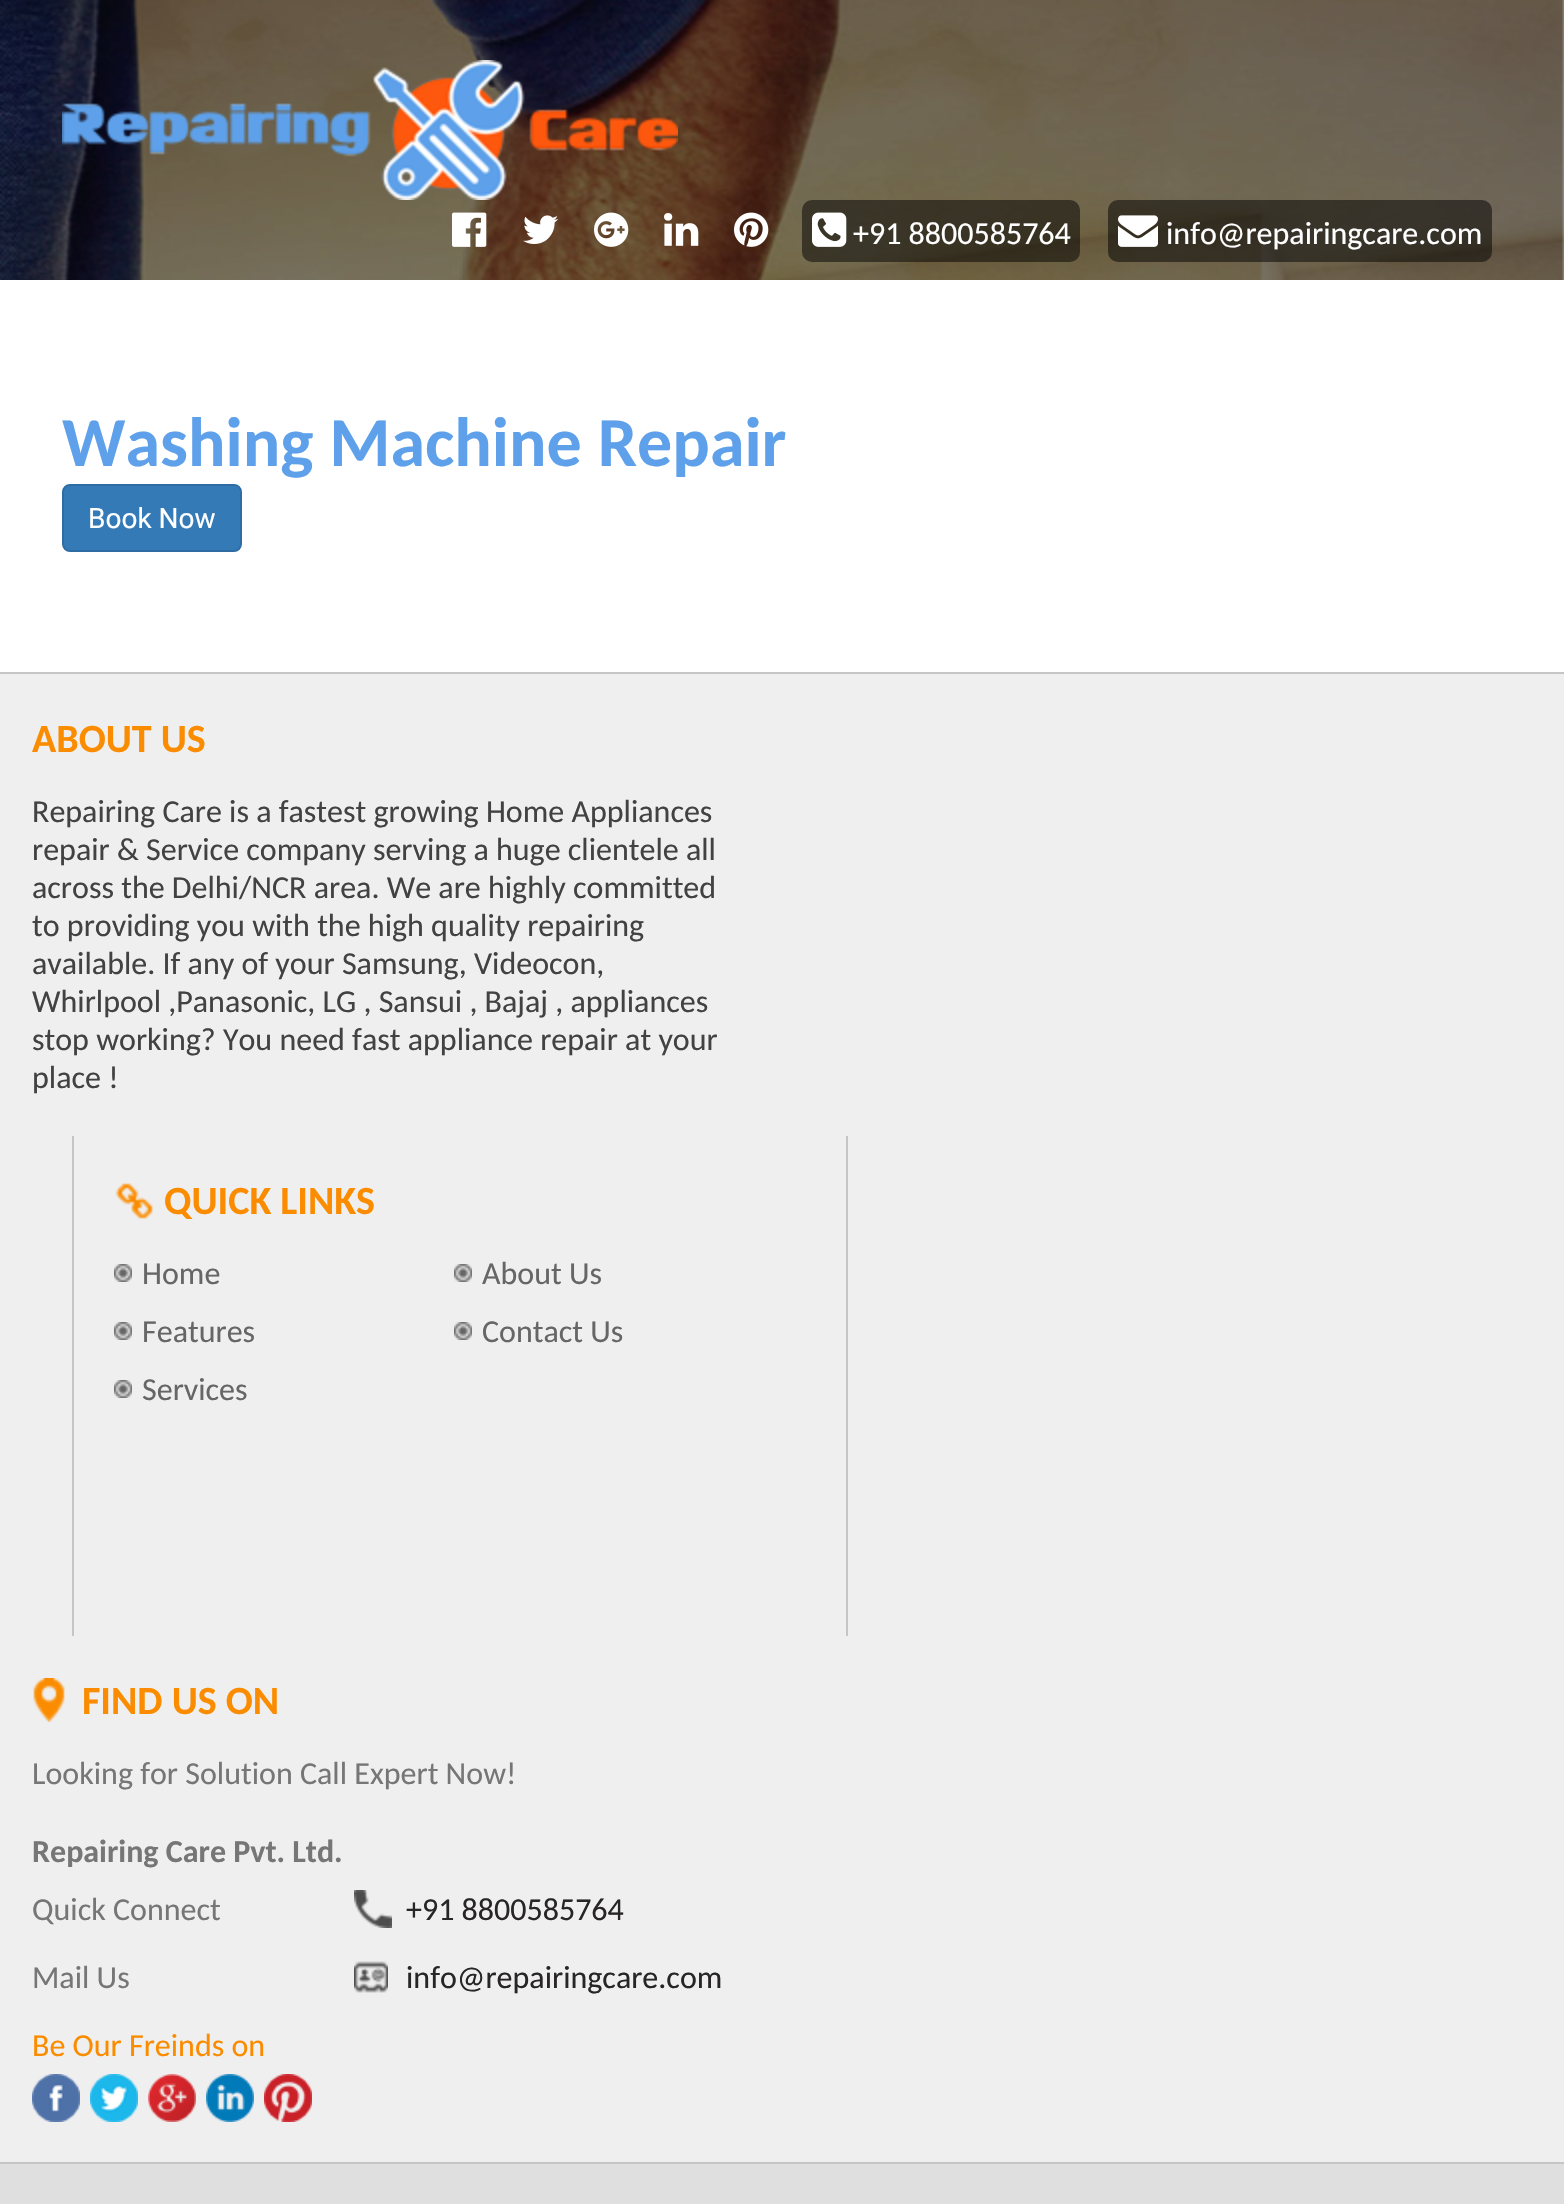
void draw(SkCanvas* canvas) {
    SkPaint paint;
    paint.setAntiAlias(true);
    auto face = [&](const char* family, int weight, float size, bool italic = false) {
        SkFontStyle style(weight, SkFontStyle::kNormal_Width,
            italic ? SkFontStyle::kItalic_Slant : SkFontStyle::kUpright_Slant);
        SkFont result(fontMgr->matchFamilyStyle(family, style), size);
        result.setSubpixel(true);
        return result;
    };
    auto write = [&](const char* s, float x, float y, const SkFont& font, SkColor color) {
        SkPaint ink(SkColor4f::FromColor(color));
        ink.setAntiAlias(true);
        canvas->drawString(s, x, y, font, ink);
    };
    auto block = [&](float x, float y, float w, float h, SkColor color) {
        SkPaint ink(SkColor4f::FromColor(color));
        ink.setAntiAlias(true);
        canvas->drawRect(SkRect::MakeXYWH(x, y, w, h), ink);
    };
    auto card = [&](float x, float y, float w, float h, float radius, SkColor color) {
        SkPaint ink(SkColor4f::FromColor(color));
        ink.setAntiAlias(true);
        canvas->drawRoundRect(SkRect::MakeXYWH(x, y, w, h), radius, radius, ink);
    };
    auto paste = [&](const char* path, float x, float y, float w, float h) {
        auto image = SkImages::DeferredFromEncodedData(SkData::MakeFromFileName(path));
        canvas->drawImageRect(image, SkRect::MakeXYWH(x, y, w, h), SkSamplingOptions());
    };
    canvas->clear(SK_ColorWHITE);
    paste("pic1.png", 0, 0, 1564, 280);
    paste("pic2.png", 62, 60, 616, 140);
    paste("pic3.png", 452, 212, 35, 35);
    paste("pic4.png", 523, 215, 35, 29);
    paste("pic5.png", 594, 212, 35, 35);
    paste("pic6.png", 664, 213, 35, 33);
    paste("pic7.png", 734, 212, 35, 35);
    card(802, 200, 278, 62, 10, SkColorSetARGB(128, 0, 0, 0));
    paste("pic8.png", 812, 212, 35, 35);
    auto kFont1 = face("Carlito", 400, 32);
    write("+91 8800585764", 853, 244, kFont1, SK_ColorWHITE);
    card(1108, 200, 384, 62, 10, SkColorSetARGB(128, 0, 0, 0));
    paste("pic9.png", 1118, 215, 40, 32);
    write("info@repairingcare.com", 1166, 244, kFont1, SK_ColorWHITE);
    auto kFont2 = face("Carlito", 700, 70);
    write("Washing Machine Repair", 62, 466, kFont2, SkColorSetRGB(94, 161, 234));
    paint.setColor(SkColorSetRGB(51, 122, 183));
    canvas->drawRoundRect(SkRect::MakeXYWH(63, 485, 178, 66), 7, 7, paint);
    paint.setStyle(SkPaint::kStroke_Style);
    paint.setStrokeWidth(2);
    paint.setColor(SkColorSetRGB(46, 109, 164));
    canvas->drawRoundRect(SkRect::MakeXYWH(63, 485, 178, 66), 7, 7, paint);
    auto kFont3 = face("Roboto", 400, 28);
    write("Book Now", 88, 528, kFont3, SK_ColorWHITE);
    block(0, 674, 1564, 1488, SkColorSetRGB(239, 239, 239));
    block(0, 672, 1564, 2, SkColorSetRGB(197, 197, 197));
    block(0, 2162, 1564, 2, SkColorSetRGB(197, 197, 197));
    auto kFont4 = face("Carlito", 700, 40);
    write("ABOUT US", 32, 752, kFont4, SkColorSetRGB(251, 140, 0));
    write("Repairing Care is a fastest growing Home Appliances", 32, 822, kFont1, SkColorSetRGB(66, 66, 66));
    write("repair & Service company serving a huge clientele all", 32, 860, kFont1, SkColorSetRGB(66, 66, 66));
    write("across the Delhi/NCR area. We are highly committed", 32, 898, kFont1, SkColorSetRGB(66, 66, 66));
    write("to providing you with the high quality repairing", 32, 936, kFont1, SkColorSetRGB(66, 66, 66));
    write("available. If any of your Samsung, Videocon,", 32, 974, kFont1, SkColorSetRGB(66, 66, 66));
    write("Whirlpool ,Panasonic, LG , Sansui , Bajaj , appliances", 32, 1012, kFont1, SkColorSetRGB(66, 66, 66));
    write("stop working? You need fast appliance repair at your", 32, 1050, kFont1, SkColorSetRGB(66, 66, 66));
    write("place !", 32, 1088, kFont1, SkColorSetRGB(66, 66, 66));
    block(846, 1136, 2, 500, SkColorSetRGB(197, 197, 197));
    block(72, 1136, 2, 500, SkColorSetRGB(197, 197, 197));
    paste("pic10.png", 115, 1183, 39, 36);
    write("QUICK LINKS", 164, 1214, kFont4, SkColorSetRGB(251, 140, 0));
    paste("pic11.png", 114, 1264, 18, 18);
    write("Home", 142, 1284, kFont1, SkColorSetRGB(102, 102, 102));
    paste("pic11.png", 454, 1264, 18, 18);
    write("About Us", 482, 1284, kFont1, SkColorSetRGB(102, 102, 102));
    paste("pic11.png", 114, 1322, 18, 18);
    write("Features", 142, 1342, kFont1, SkColorSetRGB(102, 102, 102));
    paste("pic11.png", 454, 1322, 18, 18);
    write("Contact Us", 482, 1342, kFont1, SkColorSetRGB(102, 102, 102));
    paste("pic11.png", 114, 1380, 18, 18);
    write("Services", 142, 1400, kFont1, SkColorSetRGB(102, 102, 102));
    paste("pic12.png", 33, 1678, 32, 44);
    write("FIND US ON", 82, 1714, kFont4, SkColorSetRGB(251, 140, 0));
    write("Looking for Solution Call Expert Now!", 32, 1784, kFont1, SkColorSetRGB(118, 118, 118));
    auto kFont5 = face("Carlito", 700, 32);
    write("Repairing Care Pvt. Ltd.", 32, 1862, kFont5, SkColorSetRGB(118, 118, 118));
    write("Quick Connect", 32, 1920, kFont1, SkColorSetRGB(118, 118, 118));
    write("Mail Us", 32, 1988, kFont1, SkColorSetRGB(118, 118, 118));
    paste("pic13.png", 354, 1890, 38, 38);
    write("+91 8800585764", 406, 1920, kFont1, SkColorSetRGB(39, 37, 38));
    paste("pic14.png", 354, 1961, 34, 32);
    write("info@repairingcare.com", 406, 1988, kFont1, SkColorSetRGB(39, 37, 38));
    write("Be Our Freinds on", 32, 2056, kFont1, SkColorSetRGB(251, 140, 0));
    paste("pic15.png", 32, 2074, 48, 48);
    paste("pic16.png", 90, 2074, 48, 48);
    paste("pic17.png", 148, 2074, 48, 48);
    paste("pic18.png", 206, 2074, 48, 48);
    paste("pic19.png", 264, 2074, 48, 48);
    block(0, 2164, 1564, 40, SkColorSetRGB(223, 223, 223));
}
